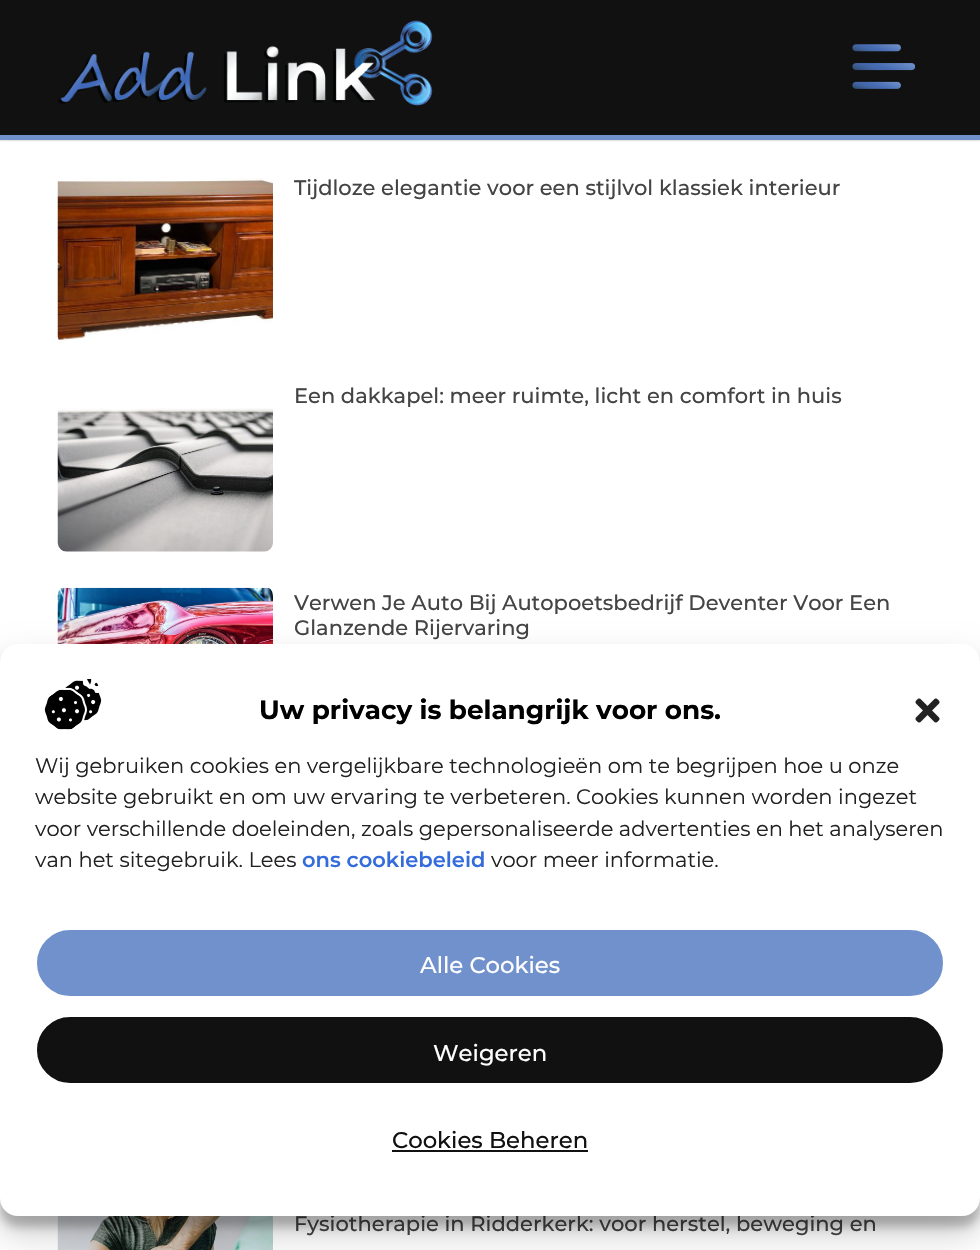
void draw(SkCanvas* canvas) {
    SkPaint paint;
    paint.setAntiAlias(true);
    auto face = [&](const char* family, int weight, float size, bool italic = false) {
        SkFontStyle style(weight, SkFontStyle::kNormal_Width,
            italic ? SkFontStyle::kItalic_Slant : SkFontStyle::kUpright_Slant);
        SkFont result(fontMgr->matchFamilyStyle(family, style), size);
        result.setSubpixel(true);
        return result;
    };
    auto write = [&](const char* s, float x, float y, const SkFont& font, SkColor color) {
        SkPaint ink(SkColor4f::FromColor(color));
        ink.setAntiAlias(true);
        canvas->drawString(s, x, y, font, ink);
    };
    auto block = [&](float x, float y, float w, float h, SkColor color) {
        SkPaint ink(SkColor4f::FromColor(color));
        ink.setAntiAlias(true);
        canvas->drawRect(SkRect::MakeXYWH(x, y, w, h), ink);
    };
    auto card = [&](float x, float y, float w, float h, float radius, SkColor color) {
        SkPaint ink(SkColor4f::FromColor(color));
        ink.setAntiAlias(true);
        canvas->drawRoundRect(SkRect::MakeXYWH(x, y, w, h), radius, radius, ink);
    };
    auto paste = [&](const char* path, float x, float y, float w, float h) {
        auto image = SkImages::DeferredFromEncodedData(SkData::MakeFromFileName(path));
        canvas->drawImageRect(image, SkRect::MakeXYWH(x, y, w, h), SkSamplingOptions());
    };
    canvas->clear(SK_ColorWHITE);
    paint.setColor(SkColorSetARGB(84, 0, 0, 0));
    paint.setMaskFilter(SkMaskFilter::MakeBlur(kNormal_SkBlurStyle, 1));
    canvas->drawRect(SkRect::MakeXYWH(0, 0, 980, 140), paint);
    paint.setMaskFilter(nullptr);
    block(0, 0, 980, 135, SkColorSetRGB(17, 17, 17));
    block(0, 135, 980, 5, SkColorSetRGB(112, 145, 204));
    paste("pic1.png", 58, 20, 375, 86);
    paste("pic2.png", 852, 44, 63, 45);
    paste("pic3.png", 57, 177, 216, 166);
    auto kFont1 = face("Montserrat", 500, 21);
    write("Tijdloze elegantie voor een stijlvol klassiek interieur", 294, 195, kFont1, SkColorSetRGB(68, 68, 68));
    write("Een dakkapel: meer ruimte, licht en comfort in huis", 294, 403, kFont1, SkColorSetRGB(68, 68, 68));
    paste("pic4.png", 57, 408, 216, 144);
    paste("pic5.png", 57, 587, 216, 57);
    write("Verwen Je Auto Bij Autopoetsbedrijf Deventer Voor Een", 294, 610, kFont1, SkColorSetRGB(68, 68, 68));
    write("Glanzende Rijervaring", 294, 635, kFont1, SkColorSetRGB(68, 68, 68));
    paste("pic6.png", 57, 1216, 216, 34);
    write("Fysiotherapie in Ridderkerk: voor herstel, beweging en", 294, 1231, kFont1, SkColorSetRGB(68, 68, 68));
    paint.setColor(SkColorSetARGB(59, 0, 0, 0));
    paint.setMaskFilter(SkMaskFilter::MakeBlur(kNormal_SkBlurStyle, 5));
    canvas->drawRoundRect(SkRect::MakeXYWH(0, 655, 980, 572), 18, 18, paint);
    paint.setMaskFilter(nullptr);
    paint.setColor(SkColorSetARGB(48, 0, 0, 0));
    paint.setMaskFilter(SkMaskFilter::MakeBlur(kNormal_SkBlurStyle, 17.5f));
    canvas->drawRoundRect(SkRect::MakeXYWH(0, 662, 980, 572), 18, 18, paint);
    paint.setMaskFilter(nullptr);
    card(0, 644, 980, 572, 18, SK_ColorWHITE);
    paste("pic7.png", 44, 679, 58, 51);
    auto kFont2 = face("Montserrat", 700, 26.25f);
    write("Uw privacy is belangrijk voor ons.", 259, 719, kFont2, SK_ColorBLACK);
    paste("pic8.png", 915, 698, 25, 25);
    auto kFont3 = face("Montserrat", 400, 21);
    write("Wij gebruiken cookies en vergelijkbare technologieën om te begrijpen hoe u onze", 35, 773, kFont3, SkColorSetRGB(34, 34, 34));
    write("website gebruikt en om uw ervaring te verbeteren. Cookies kunnen worden ingezet", 35, 804, kFont3, SkColorSetRGB(34, 34, 34));
    write("voor verschillende doeleinden, zoals gepersonaliseerde advertenties en het analyseren", 35, 836, kFont3, SkColorSetRGB(34, 34, 34));
    write("van het sitegebruik. Lees", 35, 867, kFont3, SkColorSetRGB(34, 34, 34));
    auto kFont4 = face("Montserrat", 600, 21);
    write("ons cookiebeleid", 302, 867, kFont4, SkColorSetRGB(52, 108, 219));
    write("voor meer informatie.", 491, 867, kFont3, SkColorSetRGB(34, 34, 34));
    paint.setColor(SkColorSetRGB(112, 145, 204));
    canvas->drawRoundRect(SkRect::MakeXYWH(36, 929, 908, 68), 34, 34, paint);
    paint.setStyle(SkPaint::kStroke_Style);
    paint.setStrokeWidth(2);
    paint.setColor(SK_ColorWHITE);
    canvas->drawRoundRect(SkRect::MakeXYWH(36, 929, 908, 68), 34, 34, paint);
    auto kFont5 = face("Montserrat", 500, 22.75f);
    write("Alle Cookies", 420, 973, kFont5, SK_ColorWHITE);
    paint.setStyle(SkPaint::kFill_Style);
    paint.setColor(SkColorSetRGB(17, 17, 17));
    canvas->drawRoundRect(SkRect::MakeXYWH(36, 1016, 908, 68), 34, 34, paint);
    paint.setStyle(SkPaint::kStroke_Style);
    paint.setColor(SK_ColorWHITE);
    canvas->drawRoundRect(SkRect::MakeXYWH(36, 1016, 908, 68), 34, 34, paint);
    write("Weigeren", 433, 1061, kFont5, SK_ColorWHITE);
    write("Cookies Beheren", 392, 1148, kFont5, SkColorSetRGB(17, 17, 17));
    block(392, 1150, 196, 2, SkColorSetRGB(17, 17, 17));
}
